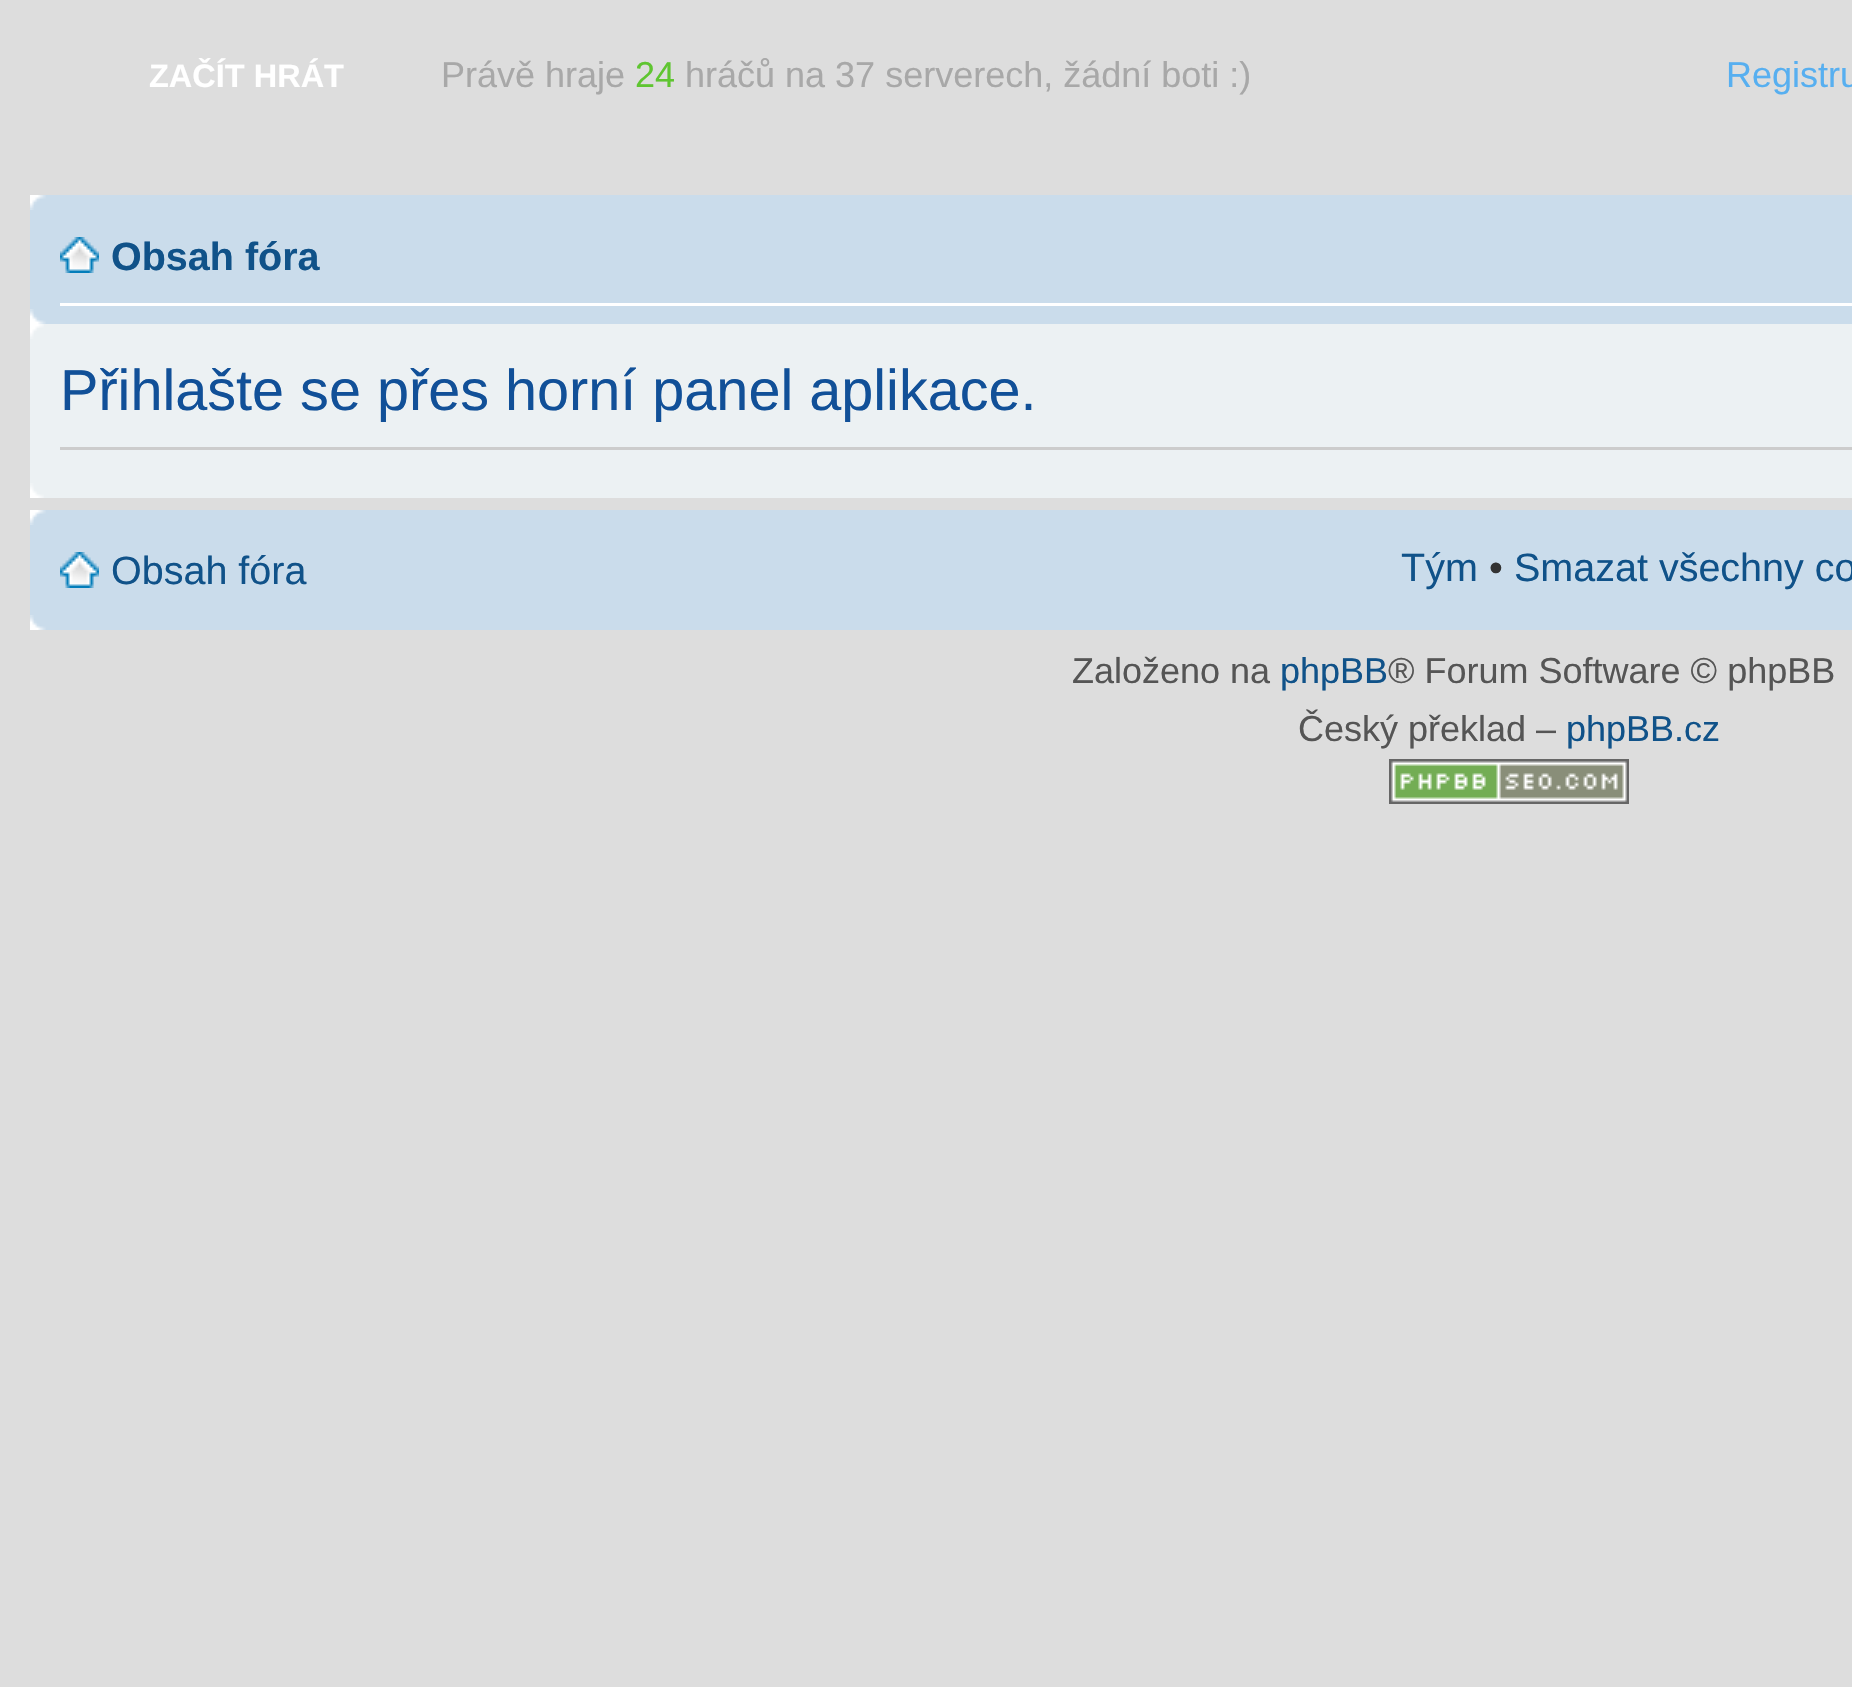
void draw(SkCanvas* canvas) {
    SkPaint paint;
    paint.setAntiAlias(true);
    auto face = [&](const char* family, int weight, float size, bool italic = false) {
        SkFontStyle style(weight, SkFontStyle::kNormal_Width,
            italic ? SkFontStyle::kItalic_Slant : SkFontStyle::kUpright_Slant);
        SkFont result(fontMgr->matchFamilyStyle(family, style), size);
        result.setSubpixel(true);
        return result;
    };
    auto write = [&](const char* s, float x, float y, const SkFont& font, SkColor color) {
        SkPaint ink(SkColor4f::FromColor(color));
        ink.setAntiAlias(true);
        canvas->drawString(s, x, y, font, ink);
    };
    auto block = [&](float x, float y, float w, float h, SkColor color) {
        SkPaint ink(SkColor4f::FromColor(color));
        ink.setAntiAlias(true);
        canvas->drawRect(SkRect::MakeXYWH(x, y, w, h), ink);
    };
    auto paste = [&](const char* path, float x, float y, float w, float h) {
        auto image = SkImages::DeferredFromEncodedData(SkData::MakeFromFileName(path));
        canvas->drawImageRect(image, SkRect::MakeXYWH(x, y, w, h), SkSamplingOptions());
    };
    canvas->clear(SkColorSetRGB(221, 221, 221));
    auto kFont1 = face("Liberation Sans", 700, 32.5f);
    write("ZAČÍT HRÁT", 149, 87, kFont1, SK_ColorWHITE);
    auto kFont2 = face("Liberation Sans", 400, 36);
    write("Právě hraje", 441, 87, kFont2, SkColorSetRGB(168, 168, 168));
    write("24", 635, 87, kFont2, SkColorSetRGB(95, 197, 49));
    write("hráčů na 37 serverech, žádní boti :)", 685, 87, kFont2, SkColorSetRGB(168, 168, 168));
    write("Registru", 1726, 87, kFont2, SkColorSetRGB(87, 175, 240));
    block(30, 195, 1822, 129, SkColorSetRGB(202, 220, 235));
    paste("pic1.png", 30, 195, 16, 15);
    block(60, 303, 1792, 3, SK_ColorWHITE);
    paste("pic2.png", 60, 237, 39, 36);
    auto kFont3 = face("Liberation Sans", 700, 39.5f);
    write("Obsah fóra", 111, 270, kFont3, SkColorSetRGB(16, 82, 137));
    paste("pic3.png", 30, 309, 16, 15);
    block(30, 324, 1822, 174, SkColorSetRGB(236, 241, 243));
    paste("pic4.png", 30, 324, 14, 15);
    block(60, 447, 1792, 3, SkColorSetRGB(204, 204, 204));
    auto kFont4 = face("Liberation Sans", 400, 57.6f);
    write("Přihlašte se přes horní panel aplikace.", 60, 410, kFont4, SkColorSetRGB(17, 80, 152));
    paste("pic5.png", 30, 483, 14, 15);
    block(30, 510, 1822, 120, SkColorSetRGB(202, 220, 235));
    paste("pic1.png", 30, 510, 16, 15);
    paste("pic2.png", 60, 552, 39, 36);
    auto kFont5 = face("Liberation Sans", 400, 39.5f);
    write("Obsah fóra", 111, 584, kFont5, SkColorSetRGB(16, 82, 137));
    write("Tým", 1401, 581, kFont5, SkColorSetRGB(16, 82, 137));
    write("•", 1489, 581, kFont5, SkColorSetRGB(51, 51, 51));
    write("Smazat všechny co", 1514, 581, kFont5, SkColorSetRGB(16, 82, 137));
    paste("pic3.png", 30, 615, 16, 15);
    write("Založeno na", 1072, 683, kFont2, SkColorSetRGB(85, 85, 85));
    write("phpBB", 1280, 683, kFont2, SkColorSetRGB(16, 82, 137));
    write("® Forum Software © phpBB", 1388, 683, kFont2, SkColorSetRGB(85, 85, 85));
    write("Český překlad –", 1298, 741, kFont2, SkColorSetRGB(85, 85, 85));
    write("phpBB.cz", 1566, 741, kFont2, SkColorSetRGB(16, 82, 137));
    paste("pic6.png", 1389, 759, 240, 45);
}
